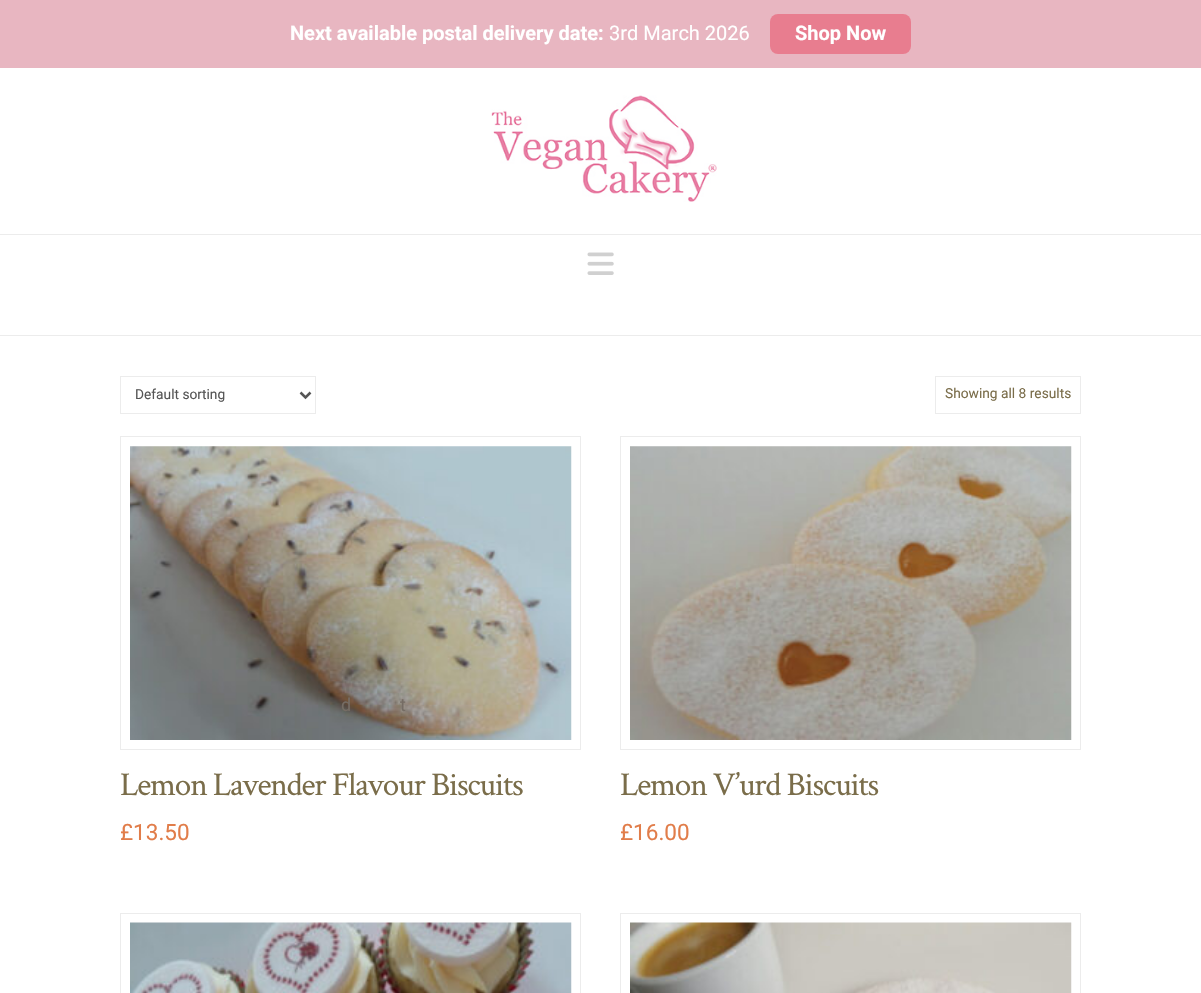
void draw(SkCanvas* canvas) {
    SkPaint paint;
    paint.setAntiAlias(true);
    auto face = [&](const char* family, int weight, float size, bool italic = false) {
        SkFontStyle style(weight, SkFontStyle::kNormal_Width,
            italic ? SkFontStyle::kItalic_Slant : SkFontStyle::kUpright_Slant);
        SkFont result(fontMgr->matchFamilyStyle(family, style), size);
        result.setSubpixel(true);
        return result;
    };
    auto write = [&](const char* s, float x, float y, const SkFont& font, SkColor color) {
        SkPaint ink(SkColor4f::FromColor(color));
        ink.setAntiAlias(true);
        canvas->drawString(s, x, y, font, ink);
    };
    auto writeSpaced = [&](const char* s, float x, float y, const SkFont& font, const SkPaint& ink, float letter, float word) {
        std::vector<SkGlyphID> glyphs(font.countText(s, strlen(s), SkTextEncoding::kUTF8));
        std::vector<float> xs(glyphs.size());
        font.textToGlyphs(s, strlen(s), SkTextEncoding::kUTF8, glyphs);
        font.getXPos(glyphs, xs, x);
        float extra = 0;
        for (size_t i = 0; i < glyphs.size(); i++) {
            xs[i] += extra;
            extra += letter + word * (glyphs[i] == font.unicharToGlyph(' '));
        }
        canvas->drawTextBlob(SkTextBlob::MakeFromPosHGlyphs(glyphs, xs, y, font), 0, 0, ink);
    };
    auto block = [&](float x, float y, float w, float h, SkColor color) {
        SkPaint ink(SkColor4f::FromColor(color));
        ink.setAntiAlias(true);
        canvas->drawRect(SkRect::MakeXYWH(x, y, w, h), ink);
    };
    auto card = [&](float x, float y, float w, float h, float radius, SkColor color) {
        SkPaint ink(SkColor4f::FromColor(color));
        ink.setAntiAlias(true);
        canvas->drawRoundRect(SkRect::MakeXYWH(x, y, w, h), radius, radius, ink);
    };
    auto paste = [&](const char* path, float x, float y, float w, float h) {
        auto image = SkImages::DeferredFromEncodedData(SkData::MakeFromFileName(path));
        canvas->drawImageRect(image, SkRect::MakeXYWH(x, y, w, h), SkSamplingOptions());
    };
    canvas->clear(SK_ColorWHITE);
    block(0, 0, 1201, 68, SkColorSetRGB(232, 182, 193));
    auto kFont1 = face("Roboto", 700, 20);
    write("Next available postal delivery date:", 290, 40, kFont1, SK_ColorWHITE);
    auto kFont2 = face("Roboto", 400, 20);
    write("3rd March 2026", 609, 40, kFont2, SK_ColorWHITE);
    card(770, 14, 141, 40, 8, SkColorSetRGB(232, 125, 143));
    write("Shop Now", 795, 40, kFont1, SK_ColorWHITE);
    block(0, 234, 1201, 1, SkColorSetRGB(236, 236, 236));
    paste("pic1.png", 491, 95, 226, 107);
    block(0, 335, 1201, 1, SkColorSetRGB(236, 236, 236));
    paste("pic2.png", 587, 252, 27, 23);
    paint.setStyle(SkPaint::kStroke_Style);
    paint.setStrokeWidth(1);
    paint.setColor(SkColorSetRGB(236, 236, 236));
    canvas->drawRect(SkRect::MakeXYWH(120.5f, 376.5f, 195, 37), paint);
    paint.setStrokeWidth(2.5f);
    paint.setColor(SkColorSetRGB(85, 85, 85));
    canvas->drawPath(SkPathBuilder().moveTo(300.5f, 392.5f).lineTo(305.5f, 397.5f).lineTo(310.5f, 392.5f).detach(), paint);
    auto kFont3 = face("Roboto", 400, 13.75f);
    write("Default sorting", 135, 399, kFont3, SkColorSetRGB(85, 85, 85));
    paint.setStrokeWidth(1);
    paint.setColor(SkColorSetRGB(236, 236, 236));
    canvas->drawRect(SkRect::MakeXYWH(935.5f, 376.5f, 145, 37), paint);
    write("Showing all 8 results", 945, 398, kFont3, SkColorSetRGB(122, 109, 74));
    canvas->drawRect(SkRect::MakeXYWH(120.5f, 436.5f, 460, 313), paint);
    paste("pic3.png", 130, 446, 442, 294);
    auto kFont4 = face("Roboto", 400, 18);
    write("d", 341, 711, kFont4, SkColorSetRGB(117, 108, 100));
    write("t", 400, 711, kFont4, SkColorSetRGB(117, 108, 100));
    auto kFont5 = face("Crimson Text", 400, 33.25f);
    paint.setStyle(SkPaint::kFill_Style);
    paint.setColor(SkColorSetRGB(122, 109, 74));
    writeSpaced("Lemon Lavender Flavour Biscuits", 120, 795, kFont5, paint, -1.2f, 0);
    auto kFont6 = face("Roboto", 400, 22.5f);
    write("£13.50", 120, 840, kFont6, SkColorSetRGB(225, 125, 74));
    paint.setStyle(SkPaint::kStroke_Style);
    paint.setColor(SkColorSetRGB(236, 236, 236));
    canvas->drawRect(SkRect::MakeXYWH(620.5f, 436.5f, 460, 313), paint);
    paste("pic4.png", 630, 446, 442, 294);
    paint.setStyle(SkPaint::kFill_Style);
    paint.setColor(SkColorSetRGB(122, 109, 74));
    writeSpaced("Lemon V’urd Biscuits", 620, 795, kFont5, paint, -1.2f, 0);
    write("£16.00", 620, 840, kFont6, SkColorSetRGB(225, 125, 74));
    paint.setStyle(SkPaint::kStroke_Style);
    paint.setColor(SkColorSetRGB(236, 236, 236));
    canvas->drawRect(SkRect::MakeXYWH(120.5f, 913.5f, 460, 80), paint);
    paste("pic5.png", 130, 922, 442, 71);
    canvas->drawRect(SkRect::MakeXYWH(620.5f, 913.5f, 460, 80), paint);
    paste("pic6.png", 630, 922, 442, 71);
}
